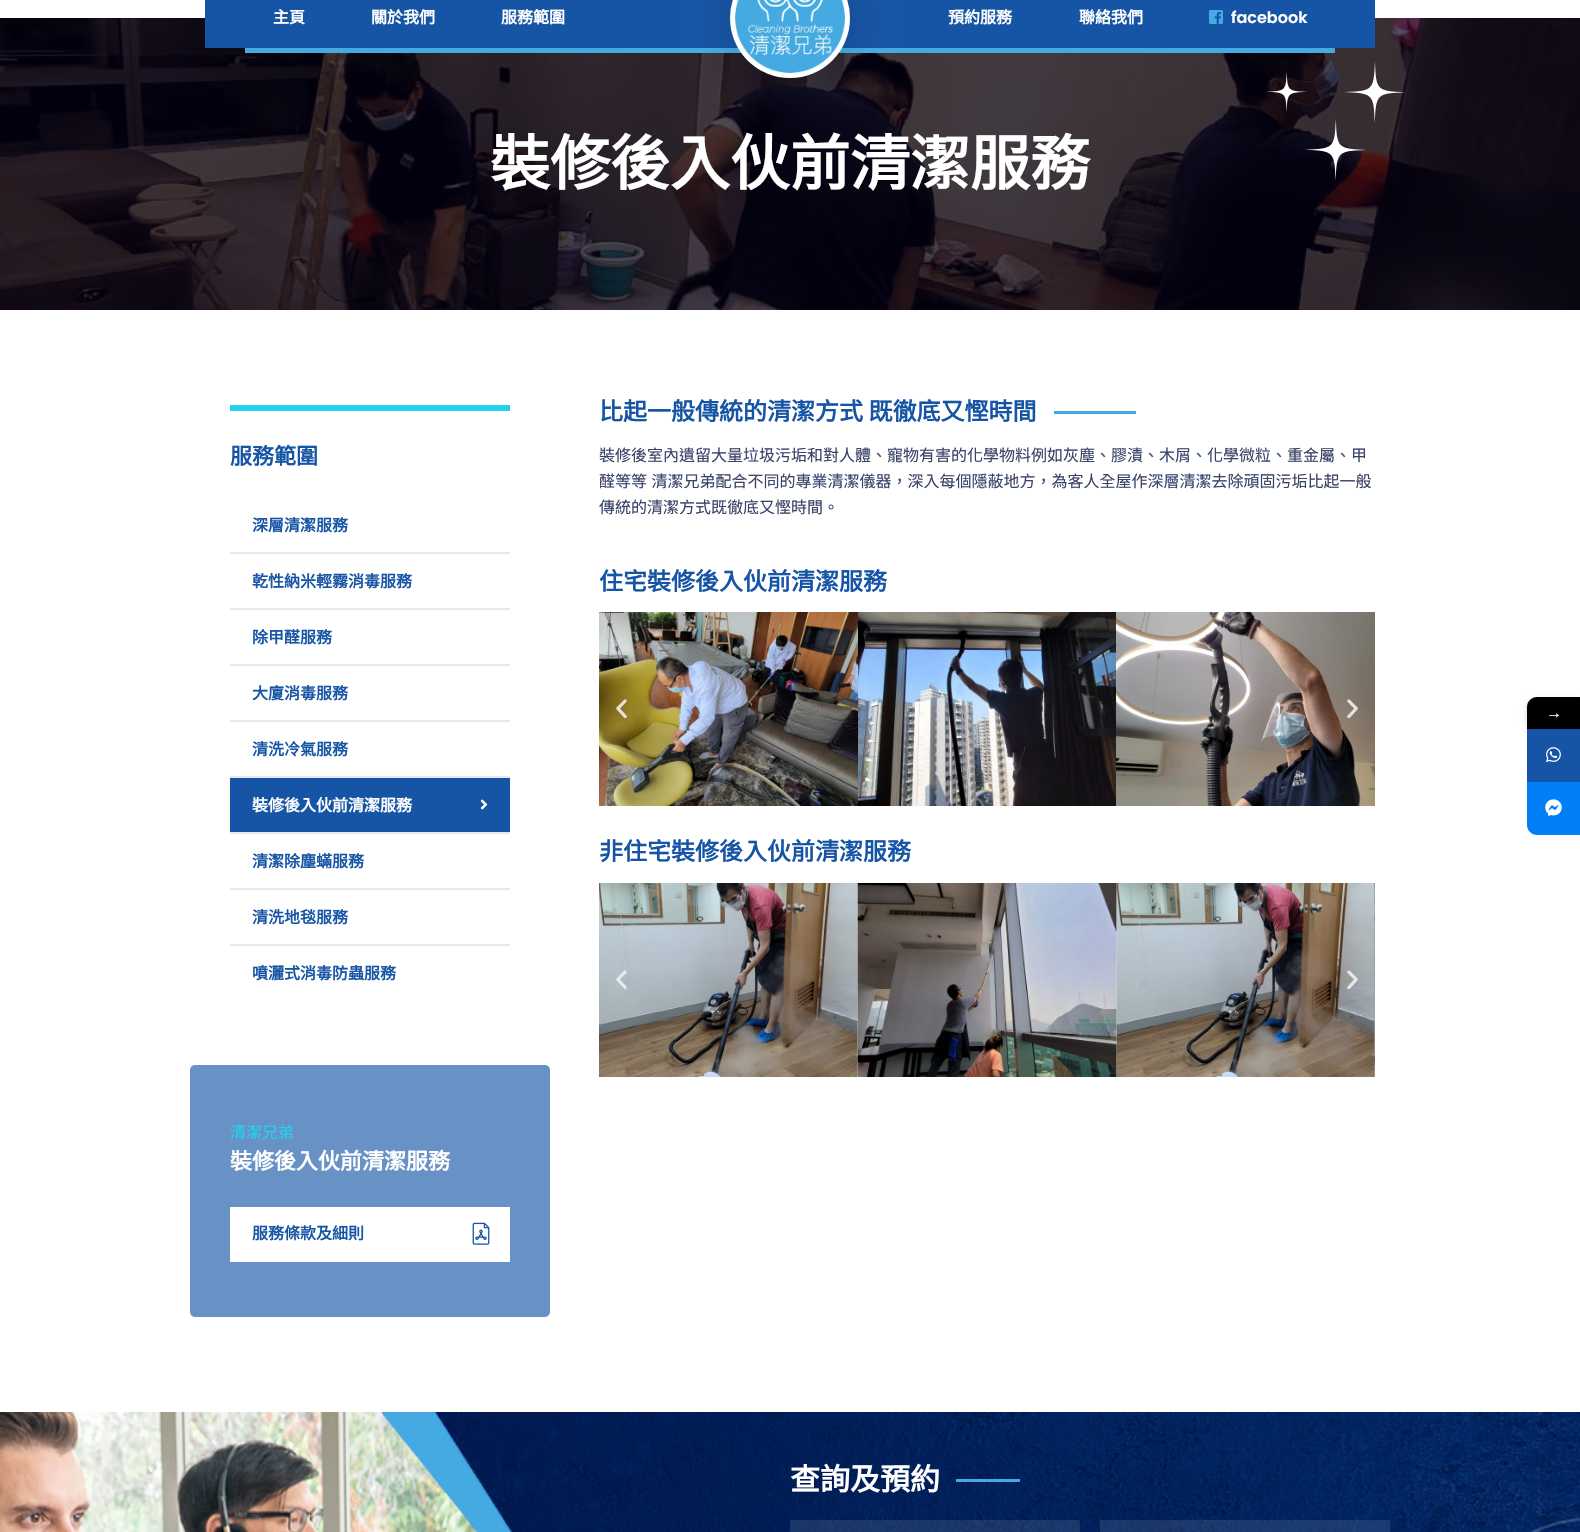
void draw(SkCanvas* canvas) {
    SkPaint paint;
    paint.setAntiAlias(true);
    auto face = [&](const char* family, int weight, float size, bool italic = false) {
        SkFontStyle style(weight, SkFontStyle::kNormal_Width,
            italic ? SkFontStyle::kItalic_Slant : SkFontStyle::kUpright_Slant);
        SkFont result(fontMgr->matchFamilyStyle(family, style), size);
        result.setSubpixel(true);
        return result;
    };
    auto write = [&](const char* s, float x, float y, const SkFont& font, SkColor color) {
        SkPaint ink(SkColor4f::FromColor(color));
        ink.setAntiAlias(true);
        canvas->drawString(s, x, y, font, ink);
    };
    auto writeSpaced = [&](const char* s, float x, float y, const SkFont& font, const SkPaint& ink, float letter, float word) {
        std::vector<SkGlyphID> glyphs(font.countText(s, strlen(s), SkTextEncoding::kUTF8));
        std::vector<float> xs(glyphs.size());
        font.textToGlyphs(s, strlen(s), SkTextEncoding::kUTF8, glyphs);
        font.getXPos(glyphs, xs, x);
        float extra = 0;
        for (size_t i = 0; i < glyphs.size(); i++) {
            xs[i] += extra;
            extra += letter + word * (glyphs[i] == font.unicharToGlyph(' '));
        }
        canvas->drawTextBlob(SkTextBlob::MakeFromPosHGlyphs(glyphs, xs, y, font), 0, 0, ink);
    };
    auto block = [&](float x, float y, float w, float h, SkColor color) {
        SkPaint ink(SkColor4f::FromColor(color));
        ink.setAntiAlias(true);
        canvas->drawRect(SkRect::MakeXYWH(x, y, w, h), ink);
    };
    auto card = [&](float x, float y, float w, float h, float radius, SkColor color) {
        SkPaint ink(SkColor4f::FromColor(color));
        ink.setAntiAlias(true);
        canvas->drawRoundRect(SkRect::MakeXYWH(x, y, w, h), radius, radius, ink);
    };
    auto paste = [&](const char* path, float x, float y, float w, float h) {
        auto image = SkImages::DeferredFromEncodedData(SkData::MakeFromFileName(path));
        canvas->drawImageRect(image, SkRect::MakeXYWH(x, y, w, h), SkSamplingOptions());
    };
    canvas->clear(SK_ColorWHITE);
    paste("pic3.png", 0, 18, 1580, 292);
    block(205, 0, 1170, 48, SkColorSetRGB(22, 85, 165));
    auto kFont1 = face("Noto Sans CJK TC", 700, 16);
    write("主頁", 273, 23, kFont1, SK_ColorWHITE);
    write("關於我們", 371, 23, kFont1, SK_ColorWHITE);
    write("服務範圍", 501, 23, kFont1, SK_ColorWHITE);
    block(245, 48, 1090, 5, SkColorSetRGB(69, 170, 226));
    paint.setColor(SkColorSetARGB(41, 12, 12, 12));
    paint.setMaskFilter(SkMaskFilter::MakeBlur(kNormal_SkBlurStyle, 21.5f));
    canvas->drawRoundRect(SkRect::MakeXYWH(730, -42, 120, 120), 60, 60, paint);
    paint.setMaskFilter(nullptr);
    paint.setColor(SK_ColorWHITE);
    canvas->drawCircle(790, 18, 60, paint);
    paste("pic1.png", 735, 0, 110, 73);
    write("預約服務", 948, 23, kFont1, SK_ColorWHITE);
    write("聯絡我們", 1079, 23, kFont1, SK_ColorWHITE);
    paste("pic2.png", 1209, 10, 14, 14);
    auto kFont2 = face("Poppins", 600, 16);
    write("facebook", 1231, 23, kFont2, SK_ColorWHITE);
    auto kFont3 = face("Noto Sans CJK TC", 700, 60);
    write("裝修後入伙前清潔服務", 490, 185, kFont3, SK_ColorWHITE);
    paste("pic4.png", 1267, 62, 138, 118);
    block(230, 405, 280, 6, SkColorSetRGB(34, 211, 238));
    auto kFont4 = face("Noto Sans CJK TC", 700, 22);
    write("服務範圍", 230, 464, kFont4, SkColorSetRGB(22, 85, 165));
    block(230, 552, 280, 2, SkColorSetRGB(229, 234, 239));
    write("深層清潔服務", 252, 531, kFont1, SkColorSetRGB(22, 85, 165));
    block(230, 608, 280, 2, SkColorSetRGB(229, 234, 239));
    write("乾性納米輕霧消毒服務", 252, 587, kFont1, SkColorSetRGB(22, 85, 165));
    block(230, 664, 280, 2, SkColorSetRGB(229, 234, 239));
    write("除甲醛服務", 252, 643, kFont1, SkColorSetRGB(22, 85, 165));
    block(230, 720, 280, 2, SkColorSetRGB(229, 234, 239));
    write("大廈消毒服務", 252, 699, kFont1, SkColorSetRGB(22, 85, 165));
    block(230, 776, 280, 2, SkColorSetRGB(229, 234, 239));
    write("清洗冷氣服務", 252, 755, kFont1, SkColorSetRGB(22, 85, 165));
    block(230, 778, 280, 54, SkColorSetRGB(22, 85, 165));
    block(230, 832, 280, 2, SkColorSetRGB(229, 234, 239));
    write("裝修後入伙前清潔服務", 252, 811, kFont1, SK_ColorWHITE);
    paste("pic5.png", 480, 799, 8, 11);
    block(230, 888, 280, 2, SkColorSetRGB(229, 234, 239));
    write("清潔除塵蟎服務", 252, 867, kFont1, SkColorSetRGB(22, 85, 165));
    block(230, 944, 280, 2, SkColorSetRGB(229, 234, 239));
    write("清洗地毯服務", 252, 923, kFont1, SkColorSetRGB(22, 85, 165));
    write("噴灑式消毒防蟲服務", 252, 979, kFont1, SkColorSetRGB(22, 85, 165));
    card(190, 1065, 360, 252, 5, SkColorSetRGB(104, 145, 197));
    auto kFont5 = face("Noto Sans CJK TC", 400, 16);
    write("清潔兄弟", 230, 1138, kFont5, SkColorSetRGB(34, 211, 238));
    write("裝修後入伙前清潔服務", 230, 1169, kFont4, SK_ColorWHITE);
    block(230, 1207, 280, 55, SK_ColorWHITE);
    write("服務條款及細則", 252, 1239, kFont1, SkColorSetRGB(22, 85, 165));
    paste("pic6.png", 472, 1222, 18, 23);
    auto kFont6 = face("Noto Sans CJK TC", 700, 24);
    write("比起一般傳統的清潔方式 既徹底又慳時間", 599, 420, kFont6, SkColorSetRGB(22, 85, 165));
    block(1054, 411, 82, 3, SkColorSetRGB(69, 170, 226));
    write("裝修後室內遺留大量垃圾污垢和對人體、寵物有害的化學物料例如灰塵、膠漬、木屑、化學微粒、重金屬、甲", 599, 461, kFont5, SkColorSetRGB(58, 66, 104));
    paint.setColor(SkColorSetRGB(58, 66, 104));
    writeSpaced("醛等等 清潔兄弟配合不同的專業清潔儀器，深入每個隱蔽地方，為客人全屋作深層清潔去除頑固污垢比起一般", 599, 487, kFont5, paint, 0, 1);
    write("傳統的清潔方式既徹底又慳時間。", 599, 513, kFont5, SkColorSetRGB(58, 66, 104));
    write("住宅裝修後入伙前清潔服務", 599, 590, kFont6, SkColorSetRGB(22, 85, 165));
    paste("pic7.png", 599, 612, 259, 194);
    paste("pic8.png", 858, 612, 258, 194);
    paste("pic9.png", 1116, 612, 259, 194);
    paste("pic10.png", 616, 699, 11, 20);
    paste("pic11.png", 1347, 699, 11, 20);
    write("非住宅裝修後入伙前清潔服務", 599, 860, kFont6, SkColorSetRGB(22, 85, 165));
    paste("pic12.png", 599, 883, 259, 194);
    paste("pic13.png", 857, 883, 260, 194);
    paste("pic14.png", 1116, 883, 259, 194);
    paste("pic15.png", 1374, 883, 1, 194);
    paste("pic16.png", 616, 970, 11, 19);
    paste("pic17.png", 1347, 970, 11, 20);
    paste("pic18.png", 0, 1412, 1580, 120);
    auto kFont7 = face("Noto Sans CJK TC", 700, 30);
    write("查詢及預約", 790, 1490, kFont7, SK_ColorWHITE);
    block(956, 1479, 64, 3, SkColorSetRGB(69, 170, 226));
    block(790, 1520, 290, 12, SkColorSetARGB(26, 255, 255, 255));
    block(1100, 1520, 290, 12, SkColorSetARGB(26, 255, 255, 255));
    paint.setColor(SkColorSetARGB(41, 0, 0, 0));
    paint.setMaskFilter(SkMaskFilter::MakeBlur(kNormal_SkBlurStyle, 3));
    canvas->drawRoundRect(SkRect::MakeXYWH(1527, 700, 53, 32), 10, 10, paint);
    paint.setMaskFilter(nullptr);
    paint.setColor(SK_ColorBLACK);
    canvas->drawPath(SkPathBuilder().moveTo(1537, 697).lineTo(1580, 697).lineTo(1580, 729).lineTo(1527, 729).lineTo(1527, 707).cubicTo(1527, 701.5f, 1531.5f, 697, 1537, 697).close().detach(), paint);
    auto kFont8 = face("Liberation Sans", 400, 16);
    write("→", 1546, 718, kFont8, SK_ColorWHITE);
    block(1527, 729, 53, 53, SkColorSetRGB(22, 85, 165));
    paste("pic19.png", 1546, 747, 15, 15);
    paint.setColor(SkColorSetRGB(0, 127, 247));
    canvas->drawPath(SkPathBuilder().moveTo(1527, 782).lineTo(1580, 782).lineTo(1580, 835).lineTo(1537, 835).cubicTo(1531.5f, 835, 1527, 830.5f, 1527, 825).close().detach(), paint);
    paste("pic20.png", 1545, 799, 17, 17);
}
